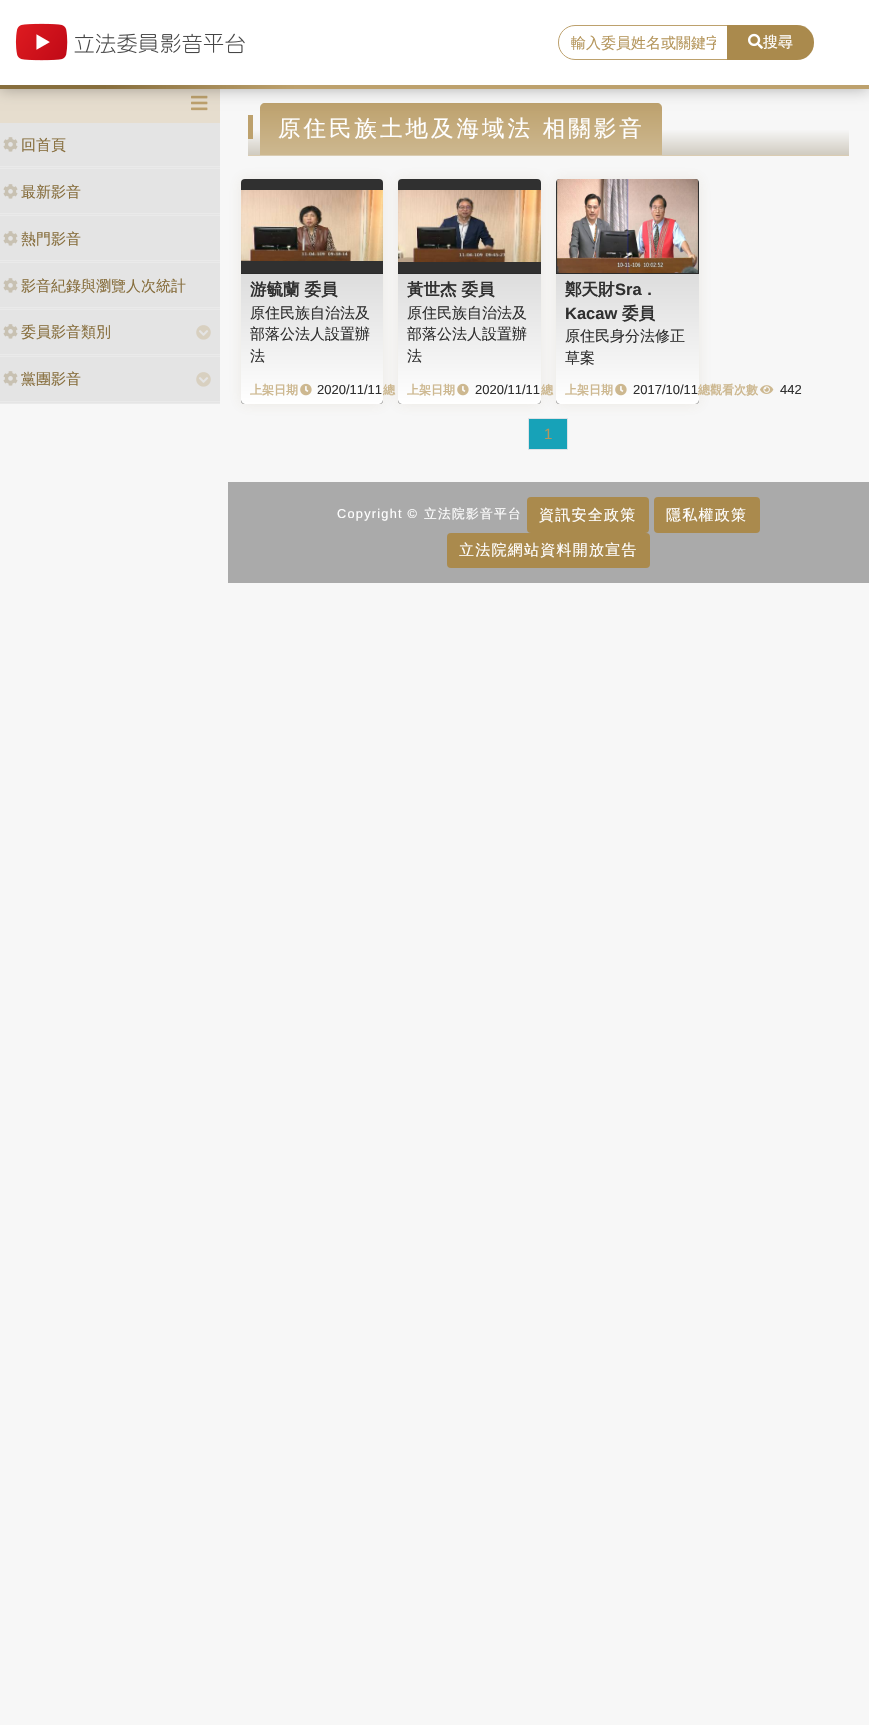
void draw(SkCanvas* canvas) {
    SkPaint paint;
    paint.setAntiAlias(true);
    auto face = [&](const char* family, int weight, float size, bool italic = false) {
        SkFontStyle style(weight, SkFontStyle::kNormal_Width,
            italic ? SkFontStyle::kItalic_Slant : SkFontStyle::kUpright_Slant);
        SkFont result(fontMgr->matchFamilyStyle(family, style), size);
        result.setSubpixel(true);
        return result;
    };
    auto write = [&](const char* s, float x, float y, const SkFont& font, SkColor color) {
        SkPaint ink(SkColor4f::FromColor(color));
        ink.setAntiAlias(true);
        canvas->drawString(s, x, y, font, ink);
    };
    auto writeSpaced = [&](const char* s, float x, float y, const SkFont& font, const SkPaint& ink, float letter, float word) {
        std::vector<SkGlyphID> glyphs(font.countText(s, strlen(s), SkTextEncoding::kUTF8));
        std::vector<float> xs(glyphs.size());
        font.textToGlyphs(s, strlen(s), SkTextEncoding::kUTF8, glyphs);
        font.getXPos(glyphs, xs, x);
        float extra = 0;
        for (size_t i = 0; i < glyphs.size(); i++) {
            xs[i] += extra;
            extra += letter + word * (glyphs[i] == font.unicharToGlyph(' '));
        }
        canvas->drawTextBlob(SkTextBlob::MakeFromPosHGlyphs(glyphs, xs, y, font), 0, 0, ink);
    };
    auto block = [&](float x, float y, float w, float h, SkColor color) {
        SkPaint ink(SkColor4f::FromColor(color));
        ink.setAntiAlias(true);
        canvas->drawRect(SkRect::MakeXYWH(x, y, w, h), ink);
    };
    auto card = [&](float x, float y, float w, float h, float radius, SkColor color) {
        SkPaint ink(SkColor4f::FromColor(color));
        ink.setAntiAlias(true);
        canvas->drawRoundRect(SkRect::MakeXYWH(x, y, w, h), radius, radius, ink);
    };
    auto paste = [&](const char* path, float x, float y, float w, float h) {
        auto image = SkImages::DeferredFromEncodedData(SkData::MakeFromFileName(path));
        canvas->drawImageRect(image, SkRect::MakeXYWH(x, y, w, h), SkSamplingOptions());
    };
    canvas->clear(SkColorSetRGB(247, 247, 247));
    block(0, 89, 220, 34, SkColorSetRGB(230, 221, 206));
    paste("pic3.png", 191, 95, 17, 16);
    {
        const SkColor colors[] = {SkColorSetRGB(247, 247, 247), SkColorSetRGB(208, 203, 192)};
        const float stops[] = {0.5f, 1};
        const SkPoint ends[] = {{549, 103}, {549, 155}};
        paint.setShader(SkGradientShader::MakeLinear(ends, colors, stops, 2, SkTileMode::kClamp));
        paint.setAlpha(255);
    }
    canvas->drawRect(SkRect::MakeXYWH(248, 130, 601, 25), paint);
    {
        const SkColor colors[] = {SkColorSetRGB(189, 161, 109), SkColorSetRGB(205, 184, 144)};
        const float stops[] = {0, 1};
        const SkPoint ends[] = {{461, 103}, {461, 155}};
        paint.setShader(SkGradientShader::MakeLinear(ends, colors, stops, 2, SkTileMode::kClamp));
        paint.setAlpha(255);
    }
    canvas->drawPath(SkPathBuilder().moveTo(265, 103).lineTo(657, 103).cubicTo(660, 103, 662, 105, 662, 108).lineTo(662, 155).lineTo(260, 155).lineTo(260, 108).cubicTo(260, 105, 262, 103, 265, 103).close().detach(), paint);
    paint.setShader(nullptr);
    paint.setColor(SkColorSetARGB(77, 0, 0, 0));
    paint.setMaskFilter(SkMaskFilter::MakeBlur(kNormal_SkBlurStyle, 7.5f));
    canvas->drawRect(SkRect::MakeXYWH(0, 0, 869, 89), paint);
    paint.setMaskFilter(nullptr);
    {
        const SkColor colors[] = {SkColorSetRGB(135, 110, 61), SkColorSetRGB(189, 161, 109)};
        const float stops[] = {0.12f, 0.34f};
        const SkPoint ends[] = {{0, 45}, {869, 44}};
        paint.setShader(SkGradientShader::MakeLinear(ends, colors, stops, 2, SkTileMode::kClamp));
        paint.setAlpha(255);
    }
    canvas->drawRect(SkRect::MakeXYWH(0, 85, 869, 4), paint);
    block(0, 0, 869, 85, SK_ColorWHITE);
    paste("pic1.png", 15, 23, 230, 38);
    paint.setStyle(SkPaint::kStroke_Style);
    paint.setStrokeWidth(1);
    paint.setShader(nullptr);
    paint.setColor(SkColorSetRGB(189, 161, 109));
    canvas->drawPath(SkPathBuilder().moveTo(575, 25.5f).lineTo(727.5f, 25.5f).lineTo(727.5f, 59.5f).lineTo(575, 59.5f).cubicTo(566, 59.5f, 558.5f, 52, 558.5f, 43).lineTo(558.5f, 42).cubicTo(558.5f, 33, 566, 25.5f, 575, 25.5f).close().detach(), paint);
    canvas->save();
    canvas->clipRect(SkRect::MakeXYWH(571, 34, 145, 19));
    auto kFont1 = face("WenQuanYi Zen Hei", 500, 15);
    write("輸入委員姓名或關鍵字", 571, 48, kFont1, SkColorSetRGB(181, 150, 92));
    canvas->restore();
    paint.setStyle(SkPaint::kFill_Style);
    paint.setColor(SkColorSetRGB(170, 138, 77));
    canvas->drawPath(SkPathBuilder().moveTo(727, 25).lineTo(797, 25).cubicTo(806.5f, 25, 814, 32.5f, 814, 42).lineTo(814, 43).cubicTo(814, 52.5f, 806.5f, 60, 797, 60).lineTo(727, 60).close().detach(), paint);
    paste("pic2.png", 748, 33, 15, 16);
    write("搜尋", 763, 47, kFont1, SK_ColorWHITE);
    block(0, 166, 220, 238, SkColorSetRGB(234, 234, 234));
    block(0, 167, 220, 1, SkColorSetRGB(229, 229, 229));
    block(0, 123, 220, 43, SkColorSetRGB(228, 228, 228));
    paste("pic4.png", 3, 137, 15, 15);
    write("回首頁", 21, 150, kFont1, SkColorSetRGB(135, 110, 61));
    block(0, 214, 220, 1, SkColorSetRGB(229, 229, 229));
    block(0, 169, 220, 44, SkColorSetRGB(228, 228, 228));
    paste("pic4.png", 3, 184, 15, 15);
    write("最新影音", 21, 197, kFont1, SkColorSetRGB(135, 110, 61));
    block(0, 261, 220, 1, SkColorSetRGB(229, 229, 229));
    block(0, 216, 220, 44, SkColorSetRGB(228, 228, 228));
    paste("pic4.png", 3, 231, 15, 15);
    write("熱門影音", 21, 244, kFont1, SkColorSetRGB(135, 110, 61));
    block(0, 308, 220, 1, SkColorSetRGB(229, 229, 229));
    block(0, 263, 220, 44, SkColorSetRGB(228, 228, 228));
    paste("pic4.png", 3, 278, 15, 15);
    write("影音紀錄與瀏覽人次統計", 21, 291, kFont1, SkColorSetRGB(135, 110, 61));
    block(0, 355, 220, 1, SkColorSetRGB(229, 229, 229));
    block(0, 310, 220, 44, SkColorSetRGB(228, 228, 228));
    paste("pic4.png", 3, 324, 15, 15);
    write("委員影音類別", 21, 337, kFont1, SkColorSetRGB(135, 110, 61));
    paste("pic5.png", 196, 325, 15, 15);
    block(0, 402, 220, 1, SkColorSetRGB(229, 229, 229));
    block(0, 357, 220, 44, SkColorSetRGB(228, 228, 228));
    paste("pic4.png", 3, 371, 15, 15);
    write("黨團影音", 21, 384, kFont1, SkColorSetRGB(135, 110, 61));
    paste("pic5.png", 196, 372, 15, 15);
    block(248, 155, 601, 1, SkColorSetRGB(218, 204, 178));
    block(248, 115, 5, 24, SkColorSetRGB(189, 161, 109));
    auto kFont2 = face("WenQuanYi Zen Hei", 500, 22.5f);
    paint.setColor(SK_ColorWHITE);
    writeSpaced("原住民族土地及海域法 相關影音", 278, 136, kFont2, paint, 3, 0);
    paint.setColor(SkColorSetARGB(26, 135, 110, 61));
    paint.setMaskFilter(SkMaskFilter::MakeBlur(kNormal_SkBlurStyle, 7));
    canvas->drawRoundRect(SkRect::MakeXYWH(241, 179, 142, 225), 4, 4, paint);
    paint.setMaskFilter(nullptr);
    card(241, 179, 142, 225, 4, SkColorSetRGB(48, 48, 48));
    paste("pic6.png", 241, 190, 142, 71);
    block(241, 273, 142, 1, SkColorSetRGB(42, 42, 42));
    {
        const SkColor colors[] = {SkColorSetRGB(221, 221, 221), SK_ColorWHITE};
        const float stops[] = {0, 1};
        const SkPoint ends[] = {{312, 274}, {312, 404}};
        paint.setShader(SkGradientShader::MakeLinear(ends, colors, stops, 2, SkTileMode::kClamp));
        paint.setAlpha(255);
    }
    canvas->drawPath(SkPathBuilder().moveTo(241, 274).lineTo(383, 274).lineTo(383, 400).cubicTo(383, 402, 381, 404, 379, 404).lineTo(245, 404).cubicTo(243, 404, 241, 402, 241, 400).close().detach(), paint);
    auto kFont3 = face("WenQuanYi Zen Hei", 700, 16.5f);
    write("游毓蘭 委員", 250, 295, kFont3, SkColorSetRGB(48, 48, 48));
    write("原住民族自治法及", 250, 318, kFont1, SkColorSetRGB(48, 48, 48));
    write("部落公法人設置辦", 250, 339, kFont1, SkColorSetRGB(48, 48, 48));
    write("法", 250, 361, kFont1, SkColorSetRGB(48, 48, 48));
    paste("pic7.png", 300, 383, 12, 13);
    auto kFont4 = face("WenQuanYi Zen Hei", 700, 12);
    write("上架日期", 250, 394, kFont4, SkColorSetRGB(205, 184, 144));
    auto kFont5 = face("Liberation Sans", 400, 13);
    write("2020/11/11", 317, 394, kFont5, SkColorSetRGB(48, 48, 48));
    write("總", 383, 394, kFont4, SkColorSetRGB(205, 184, 144));
    paint.setShader(nullptr);
    paint.setColor(SkColorSetARGB(26, 135, 110, 61));
    paint.setMaskFilter(SkMaskFilter::MakeBlur(kNormal_SkBlurStyle, 7));
    canvas->drawRoundRect(SkRect::MakeXYWH(398, 179, 143, 225), 4, 4, paint);
    paint.setMaskFilter(nullptr);
    card(398, 179, 143, 225, 4, SkColorSetRGB(48, 48, 48));
    paste("pic8.png", 398, 190, 143, 72);
    block(398, 273, 143, 1, SkColorSetRGB(42, 42, 42));
    {
        const SkColor colors[] = {SkColorSetRGB(221, 221, 221), SK_ColorWHITE};
        const float stops[] = {0, 1};
        const SkPoint ends[] = {{470, 274}, {470, 404}};
        paint.setShader(SkGradientShader::MakeLinear(ends, colors, stops, 2, SkTileMode::kClamp));
        paint.setAlpha(255);
    }
    canvas->drawPath(SkPathBuilder().moveTo(398, 274).lineTo(541, 274).lineTo(541, 400).cubicTo(541, 402, 539, 404, 537, 404).lineTo(402, 404).cubicTo(400, 404, 398, 402, 398, 400).close().detach(), paint);
    write("黃世杰 委員", 407, 295, kFont3, SkColorSetRGB(48, 48, 48));
    write("原住民族自治法及", 407, 318, kFont1, SkColorSetRGB(48, 48, 48));
    write("部落公法人設置辦", 407, 339, kFont1, SkColorSetRGB(48, 48, 48));
    write("法", 407, 361, kFont1, SkColorSetRGB(48, 48, 48));
    paste("pic7.png", 457, 383, 12, 13);
    write("上架日期", 407, 394, kFont4, SkColorSetRGB(205, 184, 144));
    write("2020/11/11", 475, 394, kFont5, SkColorSetRGB(48, 48, 48));
    write("總", 541, 394, kFont4, SkColorSetRGB(205, 184, 144));
    paint.setShader(nullptr);
    paint.setColor(SkColorSetARGB(26, 135, 110, 61));
    paint.setMaskFilter(SkMaskFilter::MakeBlur(kNormal_SkBlurStyle, 7));
    canvas->drawRoundRect(SkRect::MakeXYWH(556, 179, 143, 225), 4, 4, paint);
    paint.setMaskFilter(nullptr);
    card(556, 179, 143, 225, 4, SkColorSetRGB(48, 48, 48));
    paste("pic9.png", 557, 179, 141, 94);
    block(556, 273, 143, 1, SkColorSetRGB(42, 42, 42));
    {
        const SkColor colors[] = {SkColorSetRGB(221, 221, 221), SK_ColorWHITE};
        const float stops[] = {0, 1};
        const SkPoint ends[] = {{628, 274}, {628, 404}};
        paint.setShader(SkGradientShader::MakeLinear(ends, colors, stops, 2, SkTileMode::kClamp));
        paint.setAlpha(255);
    }
    canvas->drawPath(SkPathBuilder().moveTo(556, 274).lineTo(699, 274).lineTo(699, 400).cubicTo(699, 402, 697, 404, 695, 404).lineTo(560, 404).cubicTo(558, 404, 556, 402, 556, 400).close().detach(), paint);
    write("鄭天財", 565, 295, kFont3, SkColorSetRGB(48, 48, 48));
    auto kFont6 = face("Liberation Sans", 700, 16.5f);
    write("Sra", 615, 295, kFont6, SkColorSetRGB(48, 48, 48));
    write("．", 641, 295, kFont3, SkColorSetRGB(48, 48, 48));
    write("Kacaw", 565, 319, kFont6, SkColorSetRGB(48, 48, 48));
    write("委員", 622, 319, kFont3, SkColorSetRGB(48, 48, 48));
    write("原住民身分法修正", 565, 341, kFont1, SkColorSetRGB(48, 48, 48));
    write("草案", 565, 363, kFont1, SkColorSetRGB(48, 48, 48));
    paste("pic7.png", 615, 383, 12, 13);
    write("上架日期", 565, 394, kFont4, SkColorSetRGB(205, 184, 144));
    write("2017/10/11", 633, 394, kFont5, SkColorSetRGB(48, 48, 48));
    paste("pic10.png", 760, 385, 14, 9);
    write("總觀看次數", 698, 394, kFont4, SkColorSetRGB(205, 184, 144));
    write("442", 780, 394, kFont5, SkColorSetRGB(48, 48, 48));
    paint.setShader(nullptr);
    paint.setColor(SkColorSetRGB(23, 162, 184));
    canvas->drawRect(SkRect::MakeXYWH(528.5f, 418.5f, 39, 31), paint);
    paint.setStyle(SkPaint::kStroke_Style);
    paint.setColor(SkColorSetRGB(222, 226, 230));
    canvas->drawRect(SkRect::MakeXYWH(528.5f, 418.5f, 39, 31), paint);
    auto kFont7 = face("Liberation Sans", 400, 15);
    write("1", 544, 439, kFont7, SkColorSetRGB(181, 150, 92));
    block(228, 482, 641, 101, SkColorSetRGB(170, 170, 170));
    auto kFont8 = face("Liberation Sans", 400, 12.75f);
    paint.setStyle(SkPaint::kFill_Style);
    paint.setColor(SK_ColorWHITE);
    writeSpaced("Copyright ©", 337, 518, kFont8, paint, 1.25f, 0);
    auto kFont9 = face("WenQuanYi Zen Hei", 500, 12.75f);
    writeSpaced("立法院影音平台", 424, 518, kFont9, paint, 1.25f, 0);
    card(527, 497, 122, 36, 4, SkColorSetRGB(170, 138, 77));
    writeSpaced("資訊安全政策", 539, 520, kFont1, paint, 1.25f, 0);
    card(654, 497, 106, 36, 4, SkColorSetRGB(170, 138, 77));
    writeSpaced("隱私權政策", 666, 520, kFont1, paint, 1.25f, 0);
    card(447, 533, 203, 35, 4, SkColorSetRGB(170, 138, 77));
    writeSpaced("立法院網站資料開放宣告", 459, 555, kFont1, paint, 1.25f, 0);
}
